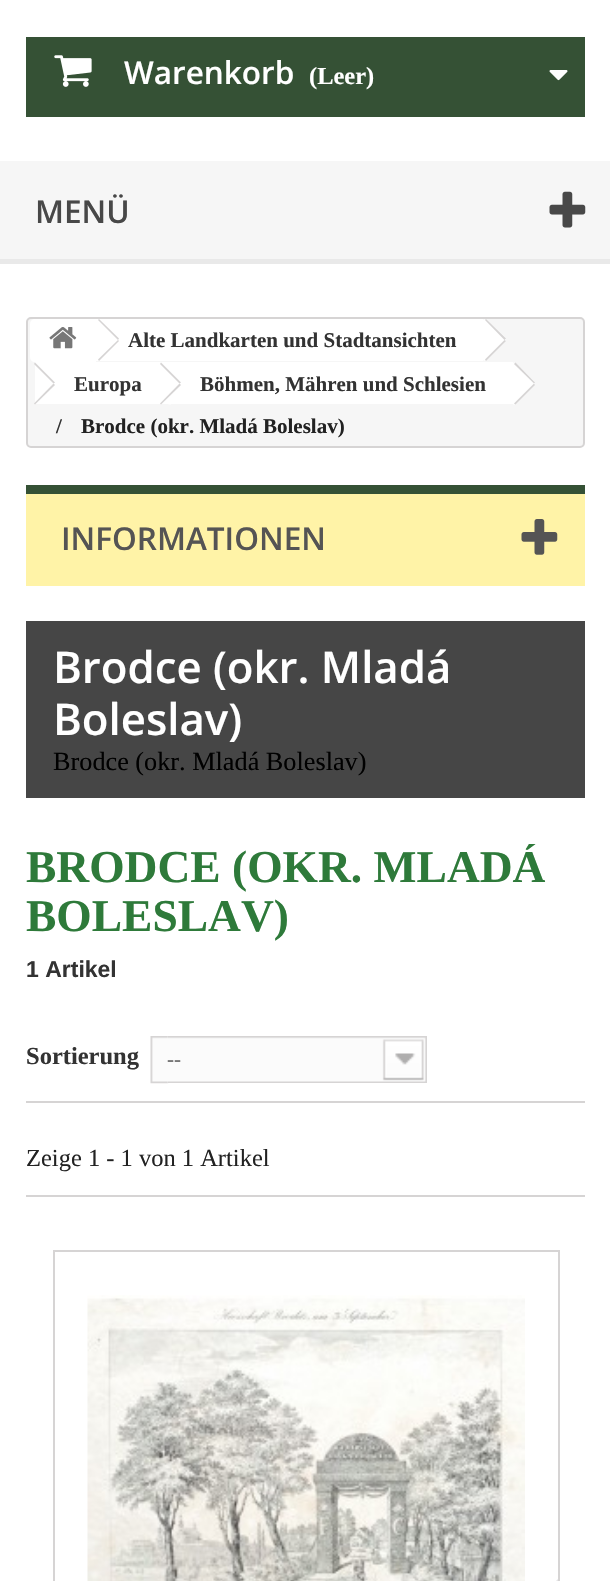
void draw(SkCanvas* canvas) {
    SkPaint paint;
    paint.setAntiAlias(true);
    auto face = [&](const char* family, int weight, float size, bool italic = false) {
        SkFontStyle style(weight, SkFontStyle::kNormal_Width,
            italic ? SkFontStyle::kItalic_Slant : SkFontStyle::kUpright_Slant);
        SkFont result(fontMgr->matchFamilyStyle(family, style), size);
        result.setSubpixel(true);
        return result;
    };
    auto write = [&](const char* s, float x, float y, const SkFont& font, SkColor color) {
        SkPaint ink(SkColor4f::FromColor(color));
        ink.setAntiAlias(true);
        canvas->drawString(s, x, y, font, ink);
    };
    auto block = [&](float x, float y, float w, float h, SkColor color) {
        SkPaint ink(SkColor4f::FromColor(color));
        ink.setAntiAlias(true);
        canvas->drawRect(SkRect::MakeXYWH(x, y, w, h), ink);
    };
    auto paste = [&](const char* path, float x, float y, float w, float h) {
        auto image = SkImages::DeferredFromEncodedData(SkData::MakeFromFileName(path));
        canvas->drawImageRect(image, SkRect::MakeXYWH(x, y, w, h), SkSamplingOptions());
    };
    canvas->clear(SK_ColorWHITE);
    block(26, 37, 559, 80, SkColorSetRGB(53, 81, 53));
    paste("pic1.png", 54, 55, 38, 32);
    auto kFont1 = face("Open Sans", 600, 31.5f);
    write("Warenkorb", 124, 84, kFont1, SK_ColorWHITE);
    auto kFont2 = face("Liberation Serif", 700, 24.5f);
    write("(Leer)", 309, 84, kFont2, SK_ColorWHITE);
    paste("pic2.png", 549, 70, 19, 11);
    block(0, 161, 610, 98, SkColorSetRGB(246, 246, 246));
    block(0, 259, 610, 5, SkColorSetRGB(233, 233, 233));
    write("MENÜ", 35, 223, kFont1, SkColorSetRGB(72, 72, 72));
    paste("pic3.png", 549, 191, 37, 37);
    paint.setColor(SkColorSetRGB(246, 246, 246));
    canvas->drawRoundRect(SkRect::MakeXYWH(27, 318, 557, 129), 4, 4, paint);
    paint.setStyle(SkPaint::kStroke_Style);
    paint.setStrokeWidth(2);
    paint.setColor(SkColorSetRGB(214, 212, 212));
    canvas->drawRoundRect(SkRect::MakeXYWH(27, 318, 557, 129), 4, 4, paint);
    paint.setStyle(SkPaint::kFill_Style);
    paint.setColor(SK_ColorWHITE);
    canvas->drawPath(SkPathBuilder().moveTo(35, 319).lineTo(96, 319).lineTo(96, 362).lineTo(35, 362).cubicTo(32, 362, 30, 360, 30, 357).lineTo(30, 324).cubicTo(30, 321, 32, 319, 35, 319).close().detach(), paint);
    paste("pic4.png", 49, 327, 28, 22);
    block(96, 319, 387, 42, SK_ColorWHITE);
    paint.setColor(SkColorSetRGB(214, 212, 212));
    canvas->drawPath(SkPathBuilder().moveTo(99, 319).lineTo(119, 338.5f).lineTo(118, 340).lineTo(98, 320).close().moveTo(118, 340).lineTo(119, 341).lineTo(99, 361).lineTo(98, 359.5f).close().detach(), paint);
    auto kFont3 = face("Liberation Serif", 700, 21);
    write("Alte Landkarten und Stadtansichten", 128, 347, kFont3, SkColorSetRGB(51, 51, 51));
    paint.setColor(SK_ColorWHITE);
    canvas->drawPath(SkPathBuilder().moveTo(487, 320).lineTo(505, 337).cubicTo(506, 339, 506, 341, 505, 342).lineTo(487, 360).cubicTo(486, 361, 484, 361, 482, 360).lineTo(465, 342).cubicTo(464, 341, 464, 339, 465, 337).lineTo(482, 320).cubicTo(484, 319, 486, 319, 487, 320).close().detach(), paint);
    paint.setColor(SkColorSetRGB(214, 212, 212));
    canvas->drawPath(SkPathBuilder().moveTo(486, 319).lineTo(506, 338.5f).lineTo(504.5f, 340).lineTo(485, 320).close().moveTo(504.5f, 340).lineTo(506, 341).lineTo(486, 361).lineTo(485, 359.5f).close().detach(), paint);
    block(35, 362, 126, 42, SK_ColorWHITE);
    canvas->drawPath(SkPathBuilder().moveTo(35, 362.5f).lineTo(55, 382.5f).lineTo(53.5f, 383.5f).lineTo(34, 364).close().detach(), paint);
    canvas->drawPath(SkPathBuilder().moveTo(53.5f, 383.5f).lineTo(55, 385).lineTo(35, 404.5f).lineTo(34, 403.5f).close().detach(), paint);
    write("Europa", 74, 391, kFont3, SkColorSetRGB(51, 51, 51));
    paint.setColor(SK_ColorWHITE);
    canvas->drawPath(SkPathBuilder().moveTo(172, 364).lineTo(190, 381).cubicTo(191, 383, 191, 385, 190, 386).lineTo(172, 403).cubicTo(171, 405, 169, 405, 167, 403).lineTo(150, 386).cubicTo(149, 385, 149, 383, 150, 381).lineTo(167, 364).cubicTo(169, 362, 171, 362, 172, 364).close().detach(), paint);
    block(161, 362, 352, 42, SK_ColorWHITE);
    paint.setColor(SkColorSetRGB(214, 212, 212));
    canvas->drawPath(SkPathBuilder().moveTo(161, 362.5f).lineTo(181, 382.5f).lineTo(179.5f, 383.5f).lineTo(160, 364).close().detach(), paint);
    canvas->drawPath(SkPathBuilder().moveTo(179.5f, 383.5f).lineTo(181, 385).lineTo(161, 404.5f).lineTo(160, 403.5f).close().detach(), paint);
    write("Böhmen, Mähren und Schlesien", 200, 391, kFont3, SkColorSetRGB(51, 51, 51));
    paint.setColor(SK_ColorWHITE);
    canvas->drawPath(SkPathBuilder().moveTo(517, 364).lineTo(534, 381).cubicTo(535, 383, 535, 385, 534, 386).lineTo(517, 403).cubicTo(515, 405, 513, 405, 512, 403).lineTo(494, 386).cubicTo(493, 385, 493, 383, 494, 381).lineTo(512, 364).cubicTo(513, 362, 515, 362, 517, 364).close().detach(), paint);
    paint.setColor(SkColorSetRGB(214, 212, 212));
    canvas->drawPath(SkPathBuilder().moveTo(515.5f, 362.5f).lineTo(535, 382.5f).lineTo(534, 383.5f).lineTo(514, 364).close().detach(), paint);
    canvas->drawPath(SkPathBuilder().moveTo(534, 383.5f).lineTo(535, 385).lineTo(515.5f, 404.5f).lineTo(514, 403.5f).close().detach(), paint);
    write("/", 56, 433, kFont3, SkColorSetRGB(51, 51, 51));
    write("Brodce (okr. Mladá Boleslav)", 81, 433, kFont3, SkColorSetRGB(34, 34, 34));
    block(26, 494, 559, 92, SkColorSetRGB(255, 243, 167));
    block(26, 485, 559, 9, SkColorSetRGB(53, 81, 53));
    write("INFORMATIONEN", 61, 550, kFont1, SkColorSetRGB(85, 84, 84));
    paste("pic5.png", 521, 519, 37, 36);
    block(26, 621, 559, 177, SkColorSetRGB(70, 70, 70));
    auto kFont4 = face("Open Sans", 600, 43.75f);
    write("Brodce (okr. Mladá", 53, 683, kFont4, SK_ColorWHITE);
    write("Boleslav)", 53, 735, kFont4, SK_ColorWHITE);
    auto kFont5 = face("Liberation Serif", 400, 26.25f);
    write("Brodce (okr. Mladá Boleslav)", 53, 770, kFont5, SK_ColorBLACK);
    canvas->save();
    canvas->clipRect(SkRect::MakeXYWH(26, 844, 559, 192));
    auto kFont6 = face("Liberation Serif", 700, 45.5f);
    write("BRODCE (OKR. MLADÁ", 26, 882, kFont6, SkColorSetRGB(46, 122, 58));
    canvas->restore();
    write("BOLESLAV)", 26, 931, kFont6, SkColorSetRGB(46, 122, 58));
    auto kFont7 = face("Liberation Sans", 700, 23);
    write("1 Artikel", 26, 977, kFont7, SkColorSetRGB(51, 51, 51));
    block(26, 1101, 559, 2, SkColorSetRGB(214, 212, 212));
    write("Sortierung", 26, 1064, kFont2, SkColorSetRGB(51, 51, 51));
    paste("pic6.png", 150, 1036, 19, 48);
    paste("pic7.png", 168, 1036, 259, 47);
    auto kFont8 = face("Liberation Serif", 400, 21);
    write("--", 167, 1066, kFont8, SkColorSetRGB(102, 102, 102));
    auto kFont9 = face("Liberation Serif", 400, 24.5f);
    write("Zeige 1 - 1 von 1 Artikel", 26, 1166, kFont9, SkColorSetRGB(34, 34, 34));
    block(26, 1195, 559, 2, SkColorSetRGB(214, 212, 212));
    paint.setStyle(SkPaint::kStroke_Style);
    canvas->drawRect(SkRect::MakeXYWH(54, 1251, 505, 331), paint);
    paste("pic8.png", 87, 1295, 438, 286);
    canvas->save();
    canvas->clipRect(SkRect::MakeXYWH(182, 1449, 376, 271));
    paint.setStyle(SkPaint::kFill_Style);
    paint.setColor(SkColorSetRGB(228, 228, 230));
    canvas->drawPath(SkPathBuilder().moveTo(567, 1570).lineTo(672, 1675).lineTo(511, 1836).lineTo(406, 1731).close().detach(), paint);
    canvas->restore();
}
